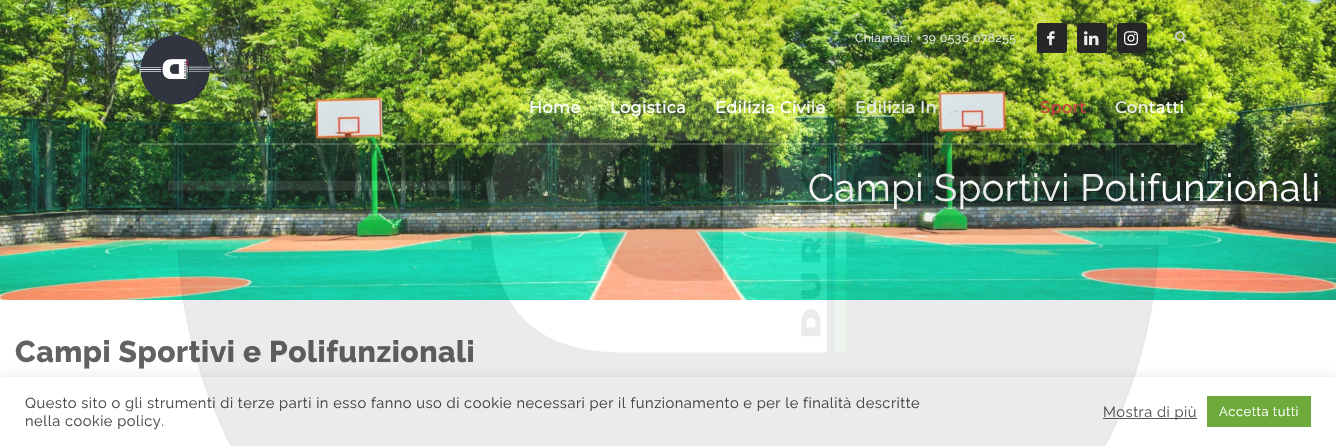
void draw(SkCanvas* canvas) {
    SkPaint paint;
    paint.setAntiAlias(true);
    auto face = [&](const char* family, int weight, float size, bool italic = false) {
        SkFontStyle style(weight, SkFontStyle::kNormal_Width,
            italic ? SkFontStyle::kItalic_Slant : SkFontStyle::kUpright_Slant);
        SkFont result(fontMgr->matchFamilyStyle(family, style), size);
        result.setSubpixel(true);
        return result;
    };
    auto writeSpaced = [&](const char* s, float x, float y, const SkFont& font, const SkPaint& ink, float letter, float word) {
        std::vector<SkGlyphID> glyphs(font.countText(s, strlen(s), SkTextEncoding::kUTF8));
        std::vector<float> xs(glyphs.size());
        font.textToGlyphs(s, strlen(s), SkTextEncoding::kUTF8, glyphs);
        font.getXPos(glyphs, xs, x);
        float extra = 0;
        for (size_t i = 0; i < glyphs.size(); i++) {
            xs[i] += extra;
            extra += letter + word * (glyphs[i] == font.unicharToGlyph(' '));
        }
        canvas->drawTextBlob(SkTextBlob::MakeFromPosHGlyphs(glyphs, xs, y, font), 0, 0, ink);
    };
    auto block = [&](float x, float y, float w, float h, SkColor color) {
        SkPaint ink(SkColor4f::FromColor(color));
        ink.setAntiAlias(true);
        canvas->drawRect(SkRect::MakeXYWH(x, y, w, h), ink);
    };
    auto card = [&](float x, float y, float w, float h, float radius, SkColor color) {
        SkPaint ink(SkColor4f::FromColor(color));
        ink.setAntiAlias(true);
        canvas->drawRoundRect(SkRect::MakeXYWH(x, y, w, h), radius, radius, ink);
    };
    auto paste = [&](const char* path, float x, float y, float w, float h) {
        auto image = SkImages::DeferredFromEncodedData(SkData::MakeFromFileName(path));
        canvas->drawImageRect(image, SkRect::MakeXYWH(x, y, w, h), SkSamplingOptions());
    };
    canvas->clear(SK_ColorWHITE);
    paste("pic7.png", 0, 0, 1336, 300);
    paste("pic2.png", 140, 35, 70, 70);
    auto kFont1 = face("Raleway", 400, 12);
    paint.setColor(SK_ColorWHITE);
    writeSpaced("Chiamaci: +39 0536 078255", 855, 42, kFont1, paint, 0.5f, 0);
    card(1037, 23, 30, 30, 3, SkColorSetRGB(38, 38, 38));
    paste("pic3.png", 1047, 31, 8, 15);
    card(1077, 23, 30, 30, 3, SkColorSetRGB(38, 38, 38));
    paste("pic4.png", 1084, 31, 15, 15);
    card(1117, 23, 30, 30, 3, SkColorSetRGB(38, 38, 38));
    paste("pic5.png", 1124, 31, 14, 15);
    auto kFont2 = face("Montserrat", 700, 16);
    writeSpaced("Home", 529, 113, kFont2, paint, 0.5f, 0);
    writeSpaced("Logistica", 610, 113, kFont2, paint, 0.5f, 0);
    writeSpaced("Edilizia Civile", 715, 113, kFont2, paint, 0.5f, 0);
    block(720, 119, 7, 1, SkColorSetARGB(102, 255, 255, 255));
    writeSpaced("Edilizia In", 855, 113, kFont2, paint, 0.5f, 0);
    block(860, 119, 7, 1, SkColorSetARGB(102, 255, 255, 255));
    paint.setColor(SkColorSetRGB(224, 69, 69));
    writeSpaced("Sport", 1040, 113, kFont2, paint, 0.5f, 0);
    block(1045, 119, 7, 1, SkColorSetARGB(71, 255, 255, 255));
    paint.setColor(SK_ColorWHITE);
    writeSpaced("Contatti", 1115, 113, kFont2, paint, 0.5f, 0);
    block(140, 143, 1057, 2, SkColorSetARGB(51, 255, 255, 255));
    auto kFont3 = face("Raleway", 400, 38);
    writeSpaced("Campi Sportivi Polifunzionali", 808, 201, kFont3, paint, 0.5f, 0);
    auto kFont4 = face("Raleway", 800, 30);
    paint.setColor(SkColorSetRGB(98, 98, 98));
    writeSpaced("Campi Sportivi e Polifunzionali", 15, 362, kFont4, paint, 0.5f, 0);
    paint.setColor(SkColorSetARGB(77, 179, 179, 179));
    paint.setMaskFilter(SkMaskFilter::MakeBlur(kNormal_SkBlurStyle, 5));
    canvas->drawRect(SkRect::MakeXYWH(0, 376, 1336, 69), paint);
    paint.setMaskFilter(nullptr);
    block(0, 377, 1336, 69, SK_ColorWHITE);
    auto kFont5 = face("Raleway", 400, 14.67f);
    paint.setColor(SkColorSetRGB(69, 69, 69));
    writeSpaced("Questo sito o gli strumenti di terze parti in esso fanno uso di cookie necessari per il funzionamento e per le finalità descritte", 25, 408, kFont5, paint, 0.5f, 0);
    block(1103, 418, 94, 1, SkColorSetRGB(85, 85, 85));
    paint.setColor(SkColorSetRGB(85, 85, 85));
    writeSpaced("Mostra di più", 1103, 417, kFont5, paint, 0.5f, 0);
    paste("pic1.png", 168, 0, 1000, 446);
    paste("pic6.png", 1175, 31, 12, 12);
    paint.setColor(SkColorSetRGB(69, 69, 69));
    writeSpaced("nella cookie policy.", 25, 426, kFont5, paint, 0.5f, 0);
    block(1207, 396, 104, 31, SkColorSetRGB(111, 170, 60));
    auto kFont6 = face("Raleway", 400, 13);
    paint.setColor(SK_ColorWHITE);
    writeSpaced("Accetta tutti", 1219, 416, kFont6, paint, 0.5f, 0);
}
